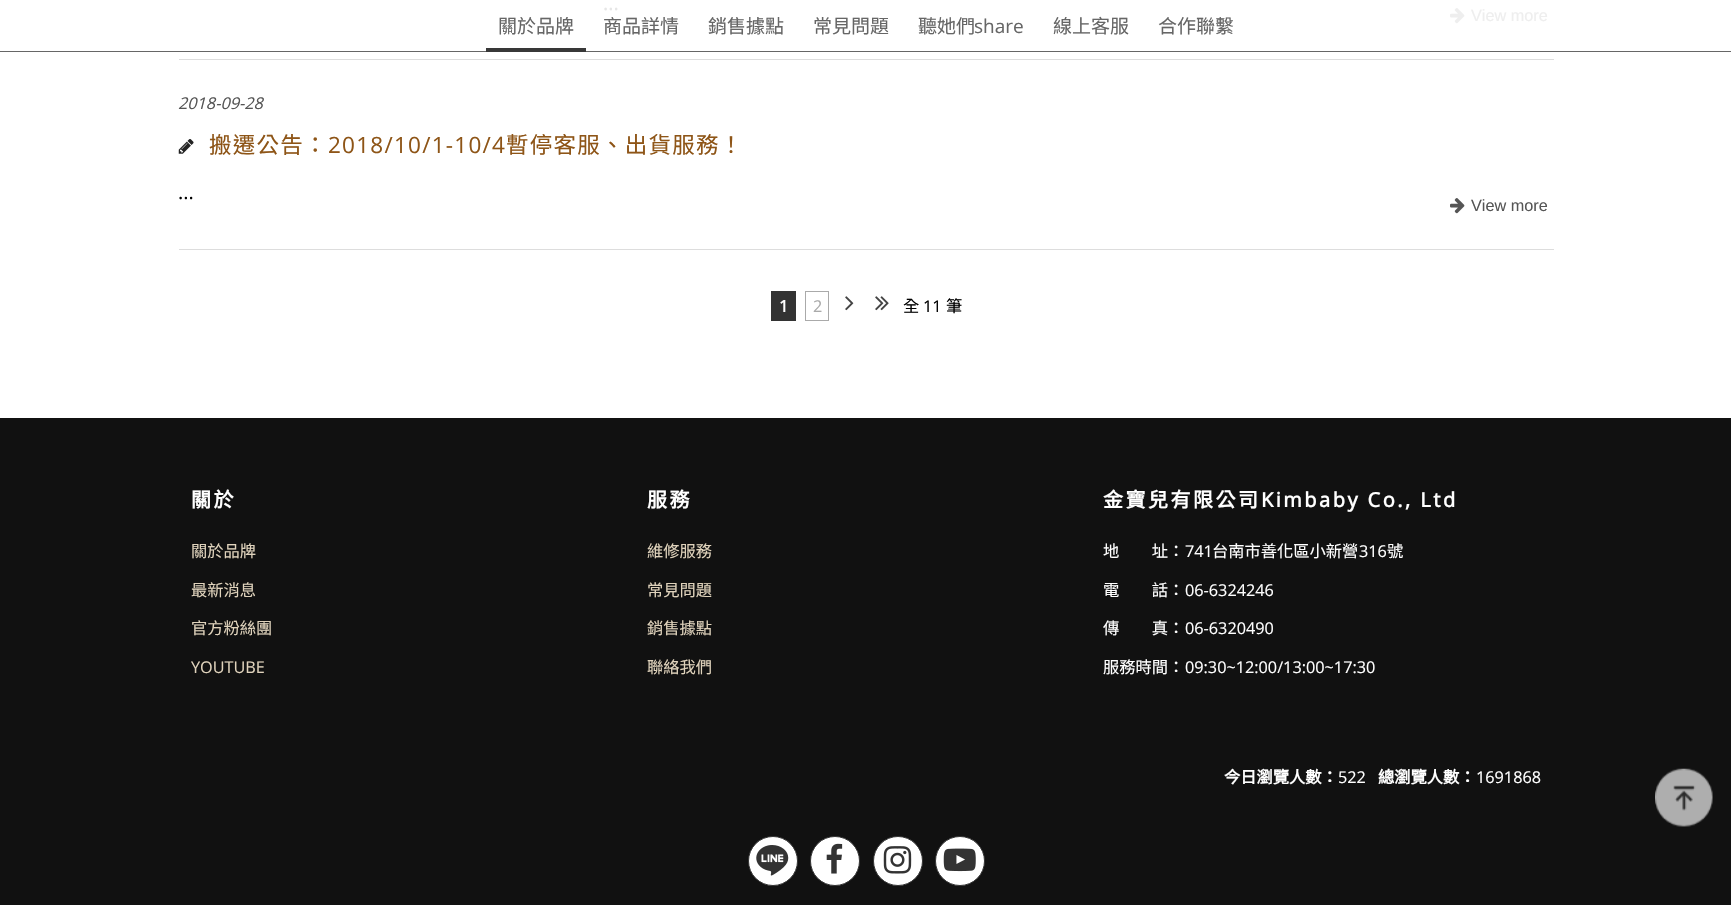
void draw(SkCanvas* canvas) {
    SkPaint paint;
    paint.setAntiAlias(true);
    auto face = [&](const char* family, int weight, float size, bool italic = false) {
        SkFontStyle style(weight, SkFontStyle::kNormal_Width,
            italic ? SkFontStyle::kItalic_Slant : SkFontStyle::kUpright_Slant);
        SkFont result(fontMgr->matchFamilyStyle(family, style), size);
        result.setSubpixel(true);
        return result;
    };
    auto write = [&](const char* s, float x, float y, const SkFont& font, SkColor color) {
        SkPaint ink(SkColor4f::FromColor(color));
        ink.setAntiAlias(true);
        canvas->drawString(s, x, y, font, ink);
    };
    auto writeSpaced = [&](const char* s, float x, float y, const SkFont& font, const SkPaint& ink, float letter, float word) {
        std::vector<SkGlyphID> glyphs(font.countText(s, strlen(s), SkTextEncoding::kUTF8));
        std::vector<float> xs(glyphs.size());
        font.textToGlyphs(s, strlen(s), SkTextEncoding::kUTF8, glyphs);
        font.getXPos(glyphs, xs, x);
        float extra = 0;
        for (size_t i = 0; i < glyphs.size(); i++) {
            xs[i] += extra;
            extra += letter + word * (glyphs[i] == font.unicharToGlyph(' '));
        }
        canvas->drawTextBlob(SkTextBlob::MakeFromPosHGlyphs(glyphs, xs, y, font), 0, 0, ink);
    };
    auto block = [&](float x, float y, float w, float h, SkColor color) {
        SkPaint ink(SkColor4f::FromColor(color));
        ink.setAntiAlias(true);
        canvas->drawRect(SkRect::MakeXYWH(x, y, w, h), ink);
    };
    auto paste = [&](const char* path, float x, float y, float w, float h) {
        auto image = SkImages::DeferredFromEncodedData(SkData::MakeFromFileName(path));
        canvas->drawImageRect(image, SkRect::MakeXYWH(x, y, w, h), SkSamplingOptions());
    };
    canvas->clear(SK_ColorWHITE);
    block(179, 59, 1375, 1, SkColorSetRGB(221, 221, 221));
    auto kFont1 = face("Open Sans", 400, 20);
    write("...", 603, 10, kFont1, SkColorSetRGB(230, 230, 230));
    paste("pic1.png", 1450, 8, 15, 16);
    auto kFont2 = face("Liberation Sans", 400, 16.25f);
    write("View more", 1471, 21, kFont2, SkColorSetRGB(238, 238, 238));
    block(179, 249, 1375, 1, SkColorSetRGB(221, 221, 221));
    auto kFont3 = face("Open Sans", 400, 16.25f, true);
    write("2018-09-28", 178, 109, kFont3, SkColorSetRGB(85, 85, 85));
    paste("pic2.png", 178, 139, 16, 15);
    auto kFont4 = face("Noto Sans CJK TC", 400, 22.5f);
    paint.setColor(SkColorSetRGB(142, 85, 23));
    writeSpaced("搬遷公告：", 209, 153, kFont4, paint, 1.25f, 0);
    auto kFont5 = face("Open Sans", 400, 22.5f);
    writeSpaced("2018/10/1-10/4", 328, 153, kFont5, paint, 1.25f, 0);
    writeSpaced("暫停客服、出貨服務！", 506, 153, kFont4, paint, 1.25f, 0);
    write("...", 178, 199, kFont1, SK_ColorBLACK);
    paste("pic3.png", 1450, 198, 15, 16);
    write("View more", 1471, 211, kFont2, SkColorSetRGB(85, 85, 85));
    block(771, 291, 25, 30, SkColorSetRGB(51, 51, 51));
    auto kFont6 = face("Open Sans", 700, 16.25f);
    write("1", 779, 312, kFont6, SK_ColorWHITE);
    paint.setStyle(SkPaint::kStroke_Style);
    paint.setStrokeWidth(1);
    paint.setColor(SkColorSetRGB(170, 170, 170));
    canvas->drawRect(SkRect::MakeXYWH(805.5f, 291.5f, 23, 29), paint);
    auto kFont7 = face("Open Sans", 400, 16.25f);
    write("2", 813, 312, kFont7, SkColorSetRGB(170, 170, 170));
    paste("pic4.png", 845, 296, 9, 15);
    paste("pic5.png", 875, 296, 14, 15);
    auto kFont8 = face("Noto Sans CJK TC", 400, 16.25f);
    write("全", 903, 312, kFont8, SK_ColorBLACK);
    write("11", 923, 312, kFont7, SK_ColorBLACK);
    write("筆", 946, 312, kFont8, SK_ColorBLACK);
    block(0, 51, 1731, 1, SkColorSetRGB(102, 102, 102));
    auto kFont9 = face("Noto Sans CJK TC", 400, 19);
    write("關於品牌", 498, 33, kFont9, SkColorSetRGB(102, 102, 102));
    write("商品詳情", 603, 33, kFont9, SkColorSetRGB(102, 102, 102));
    write("銷售據點", 708, 33, kFont9, SkColorSetRGB(102, 102, 102));
    write("常見問題", 813, 33, kFont9, SkColorSetRGB(102, 102, 102));
    write("聽她們", 918, 33, kFont9, SkColorSetRGB(102, 102, 102));
    auto kFont10 = face("Open Sans", 400, 19);
    write("share", 974, 33, kFont10, SkColorSetRGB(102, 102, 102));
    write("線上客服", 1053, 33, kFont9, SkColorSetRGB(102, 102, 102));
    write("合作聯繫", 1158, 33, kFont9, SkColorSetRGB(102, 102, 102));
    block(486, 48, 100, 4, SkColorSetRGB(56, 56, 56));
    block(0, 418, 1731, 487, SkColorSetRGB(17, 17, 17));
    auto kFont11 = face("Noto Sans CJK TC", 700, 20);
    paint.setStyle(SkPaint::kFill_Style);
    paint.setColor(SK_ColorWHITE);
    writeSpaced("關於", 191, 507, kFont11, paint, 2.5f, 0);
    write("關於品牌", 191, 557, kFont8, SkColorSetRGB(224, 211, 188));
    write("最新消息", 191, 596, kFont8, SkColorSetRGB(224, 211, 188));
    write("官方粉絲團", 191, 634, kFont8, SkColorSetRGB(224, 211, 188));
    write("YOUTUBE", 191, 673, kFont7, SkColorSetRGB(224, 211, 188));
    writeSpaced("服務", 647, 507, kFont11, paint, 2.5f, 0);
    write("維修服務", 647, 557, kFont8, SkColorSetRGB(224, 211, 188));
    write("常見問題", 647, 596, kFont8, SkColorSetRGB(224, 211, 188));
    write("銷售據點", 647, 634, kFont8, SkColorSetRGB(224, 211, 188));
    write("聯絡我們", 647, 673, kFont8, SkColorSetRGB(224, 211, 188));
    writeSpaced("金寶兒有限公司", 1103, 507, kFont11, paint, 2.5f, 0);
    auto kFont12 = face("Open Sans", 700, 20);
    writeSpaced("Kimbaby Co., Ltd", 1261, 507, kFont12, paint, 2.5f, 0);
    write("地　　址：", 1103, 557, kFont8, SK_ColorWHITE);
    write("741", 1185, 557, kFont7, SK_ColorWHITE);
    write("台南市善化區小新營", 1212, 557, kFont8, SK_ColorWHITE);
    write("316", 1359, 557, kFont7, SK_ColorWHITE);
    write("號", 1387, 557, kFont8, SK_ColorWHITE);
    write("電　　話：", 1103, 596, kFont8, SK_ColorWHITE);
    write("06-6324246", 1185, 596, kFont7, SK_ColorWHITE);
    write("傳　　真：", 1103, 634, kFont8, SK_ColorWHITE);
    write("06-6320490", 1185, 634, kFont7, SK_ColorWHITE);
    write("服務時間：", 1103, 673, kFont8, SK_ColorWHITE);
    write("09:30~12:00/13:00~17:30", 1185, 673, kFont7, SK_ColorWHITE);
    auto kFont13 = face("Noto Sans CJK TC", 700, 16.25f);
    write("今日瀏覽人數：", 1224, 783, kFont13, SK_ColorWHITE);
    write("522", 1338, 783, kFont7, SK_ColorWHITE);
    write("總瀏覽人數：", 1378, 783, kFont13, SK_ColorWHITE);
    write("1691868", 1476, 783, kFont7, SK_ColorWHITE);
    canvas->drawCircle(773, 861, 24.5f, paint);
    paint.setStyle(SkPaint::kStroke_Style);
    paint.setColor(SkColorSetRGB(51, 51, 51));
    canvas->drawCircle(773, 861, 24.5f, paint);
    paste("pic6.png", 756, 845, 33, 31);
    paint.setStyle(SkPaint::kFill_Style);
    paint.setColor(SK_ColorWHITE);
    canvas->drawCircle(835, 861, 24.5f, paint);
    paint.setStyle(SkPaint::kStroke_Style);
    paint.setColor(SkColorSetRGB(51, 51, 51));
    canvas->drawCircle(835, 861, 24.5f, paint);
    paste("pic7.png", 826, 843, 17, 31);
    paint.setStyle(SkPaint::kFill_Style);
    paint.setColor(SK_ColorWHITE);
    canvas->drawCircle(898, 861, 24.5f, paint);
    paint.setStyle(SkPaint::kStroke_Style);
    paint.setColor(SkColorSetRGB(51, 51, 51));
    canvas->drawCircle(898, 861, 24.5f, paint);
    paste("pic8.png", 883, 846, 29, 28);
    paint.setStyle(SkPaint::kFill_Style);
    paint.setColor(SK_ColorWHITE);
    canvas->drawCircle(960, 861, 24.5f, paint);
    paint.setStyle(SkPaint::kStroke_Style);
    paint.setColor(SkColorSetRGB(51, 51, 51));
    canvas->drawCircle(960, 861, 24.5f, paint);
    paste("pic9.png", 943, 848, 33, 24);
    paste("pic10.png", 1655, 768, 58, 59);
}
